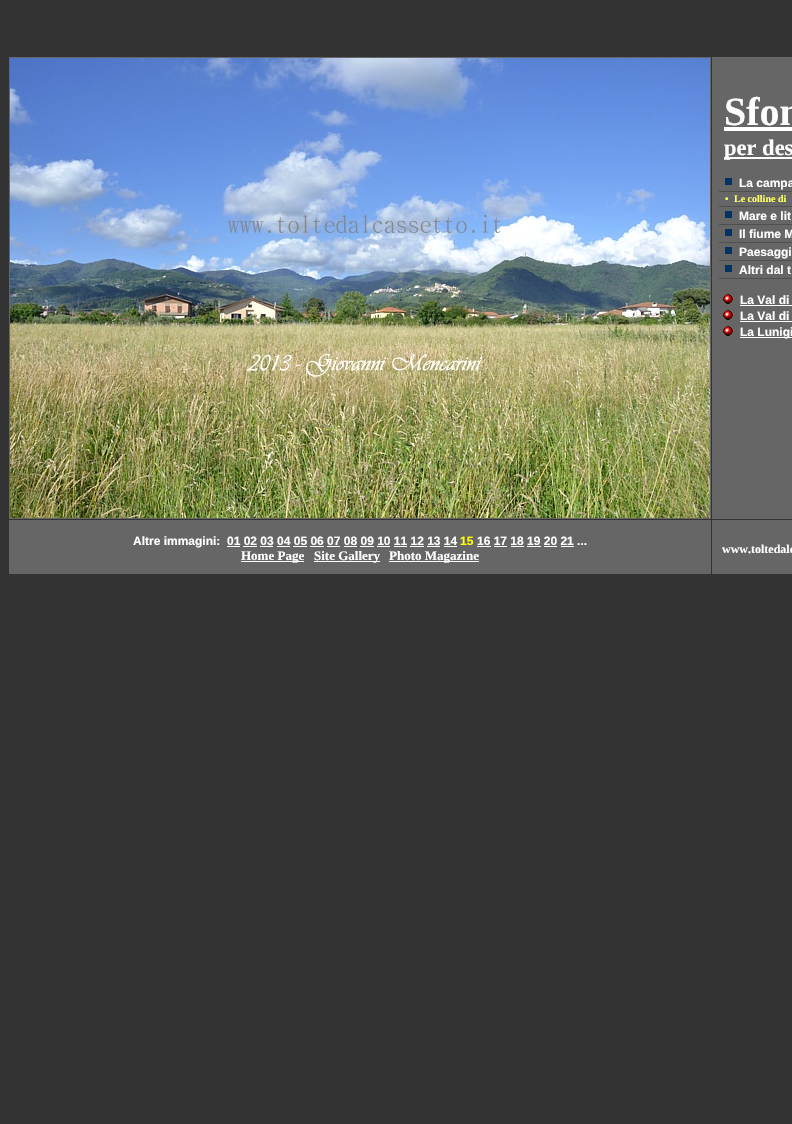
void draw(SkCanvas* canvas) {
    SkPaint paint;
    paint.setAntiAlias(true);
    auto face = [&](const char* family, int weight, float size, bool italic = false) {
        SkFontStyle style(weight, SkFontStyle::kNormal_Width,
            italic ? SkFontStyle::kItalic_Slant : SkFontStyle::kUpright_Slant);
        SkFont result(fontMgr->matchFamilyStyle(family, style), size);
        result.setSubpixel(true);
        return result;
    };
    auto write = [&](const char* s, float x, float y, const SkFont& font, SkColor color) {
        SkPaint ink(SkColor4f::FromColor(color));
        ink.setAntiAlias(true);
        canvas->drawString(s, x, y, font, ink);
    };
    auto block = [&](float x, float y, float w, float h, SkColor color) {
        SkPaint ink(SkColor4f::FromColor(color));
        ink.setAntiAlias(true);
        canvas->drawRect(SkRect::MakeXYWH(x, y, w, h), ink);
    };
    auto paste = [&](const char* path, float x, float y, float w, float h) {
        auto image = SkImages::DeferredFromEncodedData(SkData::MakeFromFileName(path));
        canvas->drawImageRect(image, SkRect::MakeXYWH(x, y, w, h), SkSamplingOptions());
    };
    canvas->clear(SkColorSetRGB(51, 51, 51));
    paint.setStyle(SkPaint::kStroke_Style);
    paint.setStrokeWidth(1);
    paint.setColor(SkColorSetRGB(102, 102, 102));
    canvas->drawRect(SkRect::MakeXYWH(9.5f, 57.5f, 701, 461), paint);
    paste("pic1.png", 10, 58, 700, 460);
    block(712, 57, 80, 462, SkColorSetRGB(102, 102, 102));
    auto kFont1 = face("Liberation Serif", 700, 40);
    write("Sfon", 724, 125, kFont1, SK_ColorWHITE);
    block(724, 127, 68, 4, SK_ColorWHITE);
    block(724, 157, 68, 2, SK_ColorWHITE);
    auto kFont2 = face("Liberation Serif", 700, 22.5f);
    write("per des", 724, 155, kFont2, SK_ColorWHITE);
    block(719, 191, 73, 1, SkColorSetRGB(79, 79, 79));
    auto kFont3 = face("Liberation Sans", 700, 12);
    write("La campa", 739, 187, kFont3, SK_ColorWHITE);
    block(725, 178, 7, 7, SkColorSetRGB(0, 51, 102));
    block(719, 206, 73, 1, SkColorSetRGB(79, 79, 79));
    auto kFont4 = face("Liberation Serif", 700, 10);
    write("•", 725, 202, kFont4, SkColorSetRGB(255, 255, 102));
    write("Le colline di", 734, 202, kFont4, SkColorSetRGB(255, 255, 102));
    block(719, 224, 73, 1, SkColorSetRGB(79, 79, 79));
    write("Mare e lit", 739, 220, kFont3, SK_ColorWHITE);
    block(725, 211, 7, 7, SkColorSetRGB(0, 51, 102));
    block(719, 242, 73, 1, SkColorSetRGB(79, 79, 79));
    write("Il fiume M", 739, 238, kFont3, SK_ColorWHITE);
    block(725, 229, 7, 7, SkColorSetRGB(0, 51, 102));
    block(719, 260, 73, 1, SkColorSetRGB(79, 79, 79));
    write("Paesaggi", 739, 256, kFont3, SK_ColorWHITE);
    block(725, 247, 7, 7, SkColorSetRGB(0, 51, 102));
    block(719, 278, 73, 1, SkColorSetRGB(79, 79, 79));
    write("Altri dal t", 739, 274, kFont3, SK_ColorWHITE);
    block(725, 265, 7, 7, SkColorSetRGB(0, 51, 102));
    paste("pic2.png", 723, 294, 10, 10);
    write("La Val di", 740, 304, kFont3, SK_ColorWHITE);
    block(740, 305, 52, 1, SK_ColorWHITE);
    paste("pic2.png", 723, 310, 10, 10);
    write("La Val di", 740, 320, kFont3, SK_ColorWHITE);
    block(740, 321, 52, 1, SK_ColorWHITE);
    paste("pic2.png", 723, 326, 10, 10);
    block(740, 337, 52, 1, SK_ColorWHITE);
    write("La Lunigi", 740, 336, kFont3, SK_ColorWHITE);
    block(9, 520, 702, 54, SkColorSetRGB(102, 102, 102));
    write("Altre immagini:", 133, 545, kFont3, SK_ColorWHITE);
    write("01 02 03 04 05 06 07 08 09 10 11 12 13 14", 227, 545, kFont3, SK_ColorWHITE);
    block(227, 546, 13, 1, SK_ColorWHITE);
    block(243, 546, 14, 1, SK_ColorWHITE);
    block(260, 546, 13, 1, SK_ColorWHITE);
    block(277, 546, 13, 1, SK_ColorWHITE);
    block(293, 546, 14, 1, SK_ColorWHITE);
    block(310, 546, 14, 1, SK_ColorWHITE);
    block(327, 546, 13, 1, SK_ColorWHITE);
    block(344, 546, 13, 1, SK_ColorWHITE);
    block(360, 546, 14, 1, SK_ColorWHITE);
    block(377, 546, 13, 1, SK_ColorWHITE);
    block(394, 546, 13, 1, SK_ColorWHITE);
    block(410, 546, 14, 1, SK_ColorWHITE);
    block(427, 546, 13, 1, SK_ColorWHITE);
    block(444, 546, 13, 1, SK_ColorWHITE);
    write("15", 460, 545, kFont3, SkColorSetRGB(255, 255, 0));
    write("16 17 18 19 20 21 ...", 477, 545, kFont3, SK_ColorWHITE);
    block(477, 546, 14, 1, SK_ColorWHITE);
    block(494, 546, 13, 1, SK_ColorWHITE);
    block(511, 546, 13, 1, SK_ColorWHITE);
    block(527, 546, 14, 1, SK_ColorWHITE);
    block(544, 546, 13, 1, SK_ColorWHITE);
    block(561, 546, 13, 1, SK_ColorWHITE);
    block(241, 561, 63, 1, SK_ColorWHITE);
    auto kFont5 = face("Liberation Serif", 700, 13);
    write("Home Page", 241, 560, kFont5, SK_ColorWHITE);
    block(314, 561, 66, 1, SK_ColorWHITE);
    write("Site Gallery", 314, 560, kFont5, SK_ColorWHITE);
    block(389, 561, 90, 1, SK_ColorWHITE);
    write("Photo Magazine", 389, 560, kFont5, SK_ColorWHITE);
    block(712, 520, 80, 54, SkColorSetRGB(102, 102, 102));
    auto kFont6 = face("Liberation Serif", 700, 12);
    write("www.toltedalc", 722, 553, kFont6, SK_ColorWHITE);
}
